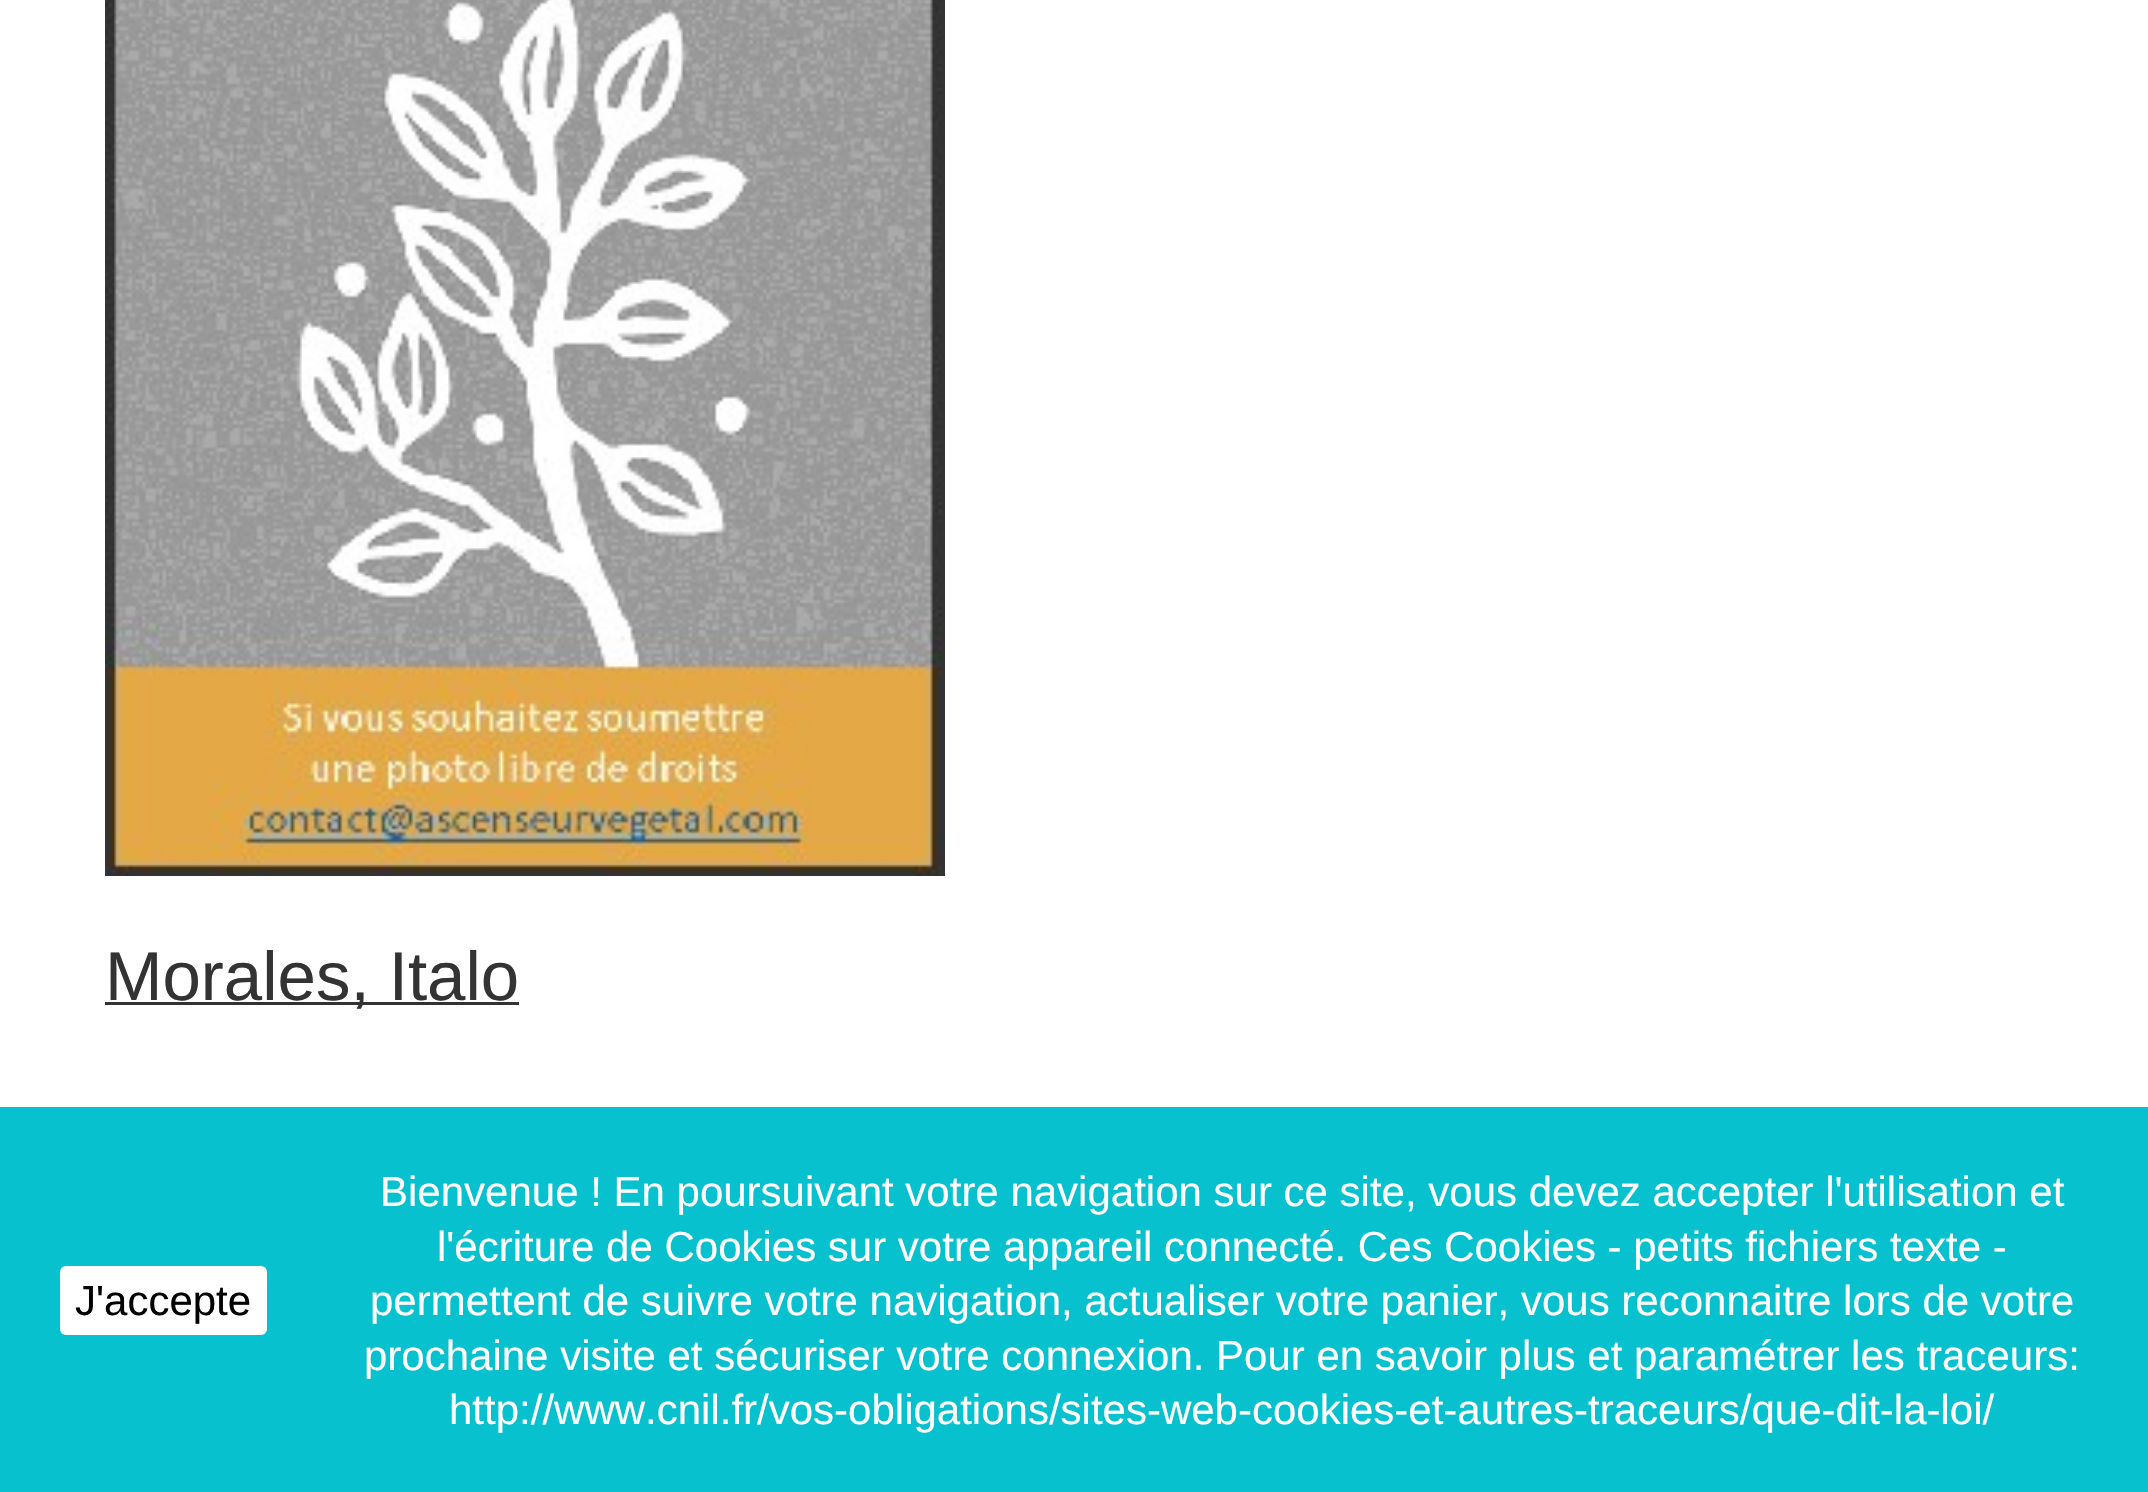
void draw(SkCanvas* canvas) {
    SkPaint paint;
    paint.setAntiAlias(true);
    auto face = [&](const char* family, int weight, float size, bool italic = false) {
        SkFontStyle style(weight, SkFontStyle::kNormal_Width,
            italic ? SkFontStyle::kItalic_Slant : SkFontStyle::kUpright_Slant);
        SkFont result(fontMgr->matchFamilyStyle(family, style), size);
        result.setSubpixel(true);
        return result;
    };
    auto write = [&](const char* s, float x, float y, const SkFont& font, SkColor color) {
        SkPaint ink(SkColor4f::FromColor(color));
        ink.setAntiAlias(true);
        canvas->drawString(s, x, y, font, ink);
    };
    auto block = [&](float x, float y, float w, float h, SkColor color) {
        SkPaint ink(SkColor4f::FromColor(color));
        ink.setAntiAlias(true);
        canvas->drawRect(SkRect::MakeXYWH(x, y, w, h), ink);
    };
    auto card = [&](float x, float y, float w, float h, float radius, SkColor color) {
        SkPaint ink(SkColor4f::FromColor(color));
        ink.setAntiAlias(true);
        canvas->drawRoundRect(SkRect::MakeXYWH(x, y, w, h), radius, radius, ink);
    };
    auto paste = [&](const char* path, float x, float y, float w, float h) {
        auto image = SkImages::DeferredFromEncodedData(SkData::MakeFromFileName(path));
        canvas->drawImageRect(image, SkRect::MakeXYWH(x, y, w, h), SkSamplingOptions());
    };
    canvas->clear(SK_ColorWHITE);
    paste("pic1.png", 105, 0, 840, 876);
    block(105, 1002, 414, 3, SkColorSetRGB(51, 51, 51));
    auto kFont1 = face("Liberation Sans", 400, 69);
    write("Morales, Italo", 105, 1000, kFont1, SkColorSetRGB(51, 51, 51));
    block(0, 1107, 2148, 385, SkColorSetRGB(8, 193, 207));
    card(60, 1266, 207, 69, 6, SK_ColorWHITE);
    auto kFont2 = face("Liberation Sans", 400, 42);
    write("J'accepte", 75, 1315, kFont2, SK_ColorBLACK);
    write("Bienvenue ! En poursuivant votre navigation sur ce site, vous devez accepter l'utilisation et", 380, 1206, kFont2, SK_ColorWHITE);
    write("l'écriture de Cookies sur votre appareil connecté. Ces Cookies - petits fichiers texte -", 437, 1261, kFont2, SK_ColorWHITE);
    write("permettent de suivre votre navigation, actualiser votre panier, vous reconnaitre lors de votre", 370, 1315, kFont2, SK_ColorWHITE);
    write("prochaine visite et sécuriser votre connexion. Pour en savoir plus et paramétrer les traceurs:", 364, 1370, kFont2, SK_ColorWHITE);
    write("http://www.cnil.fr/vos-obligations/sites-web-cookies-et-autres-traceurs/que-dit-la-loi/", 449, 1424, kFont2, SK_ColorWHITE);
}
